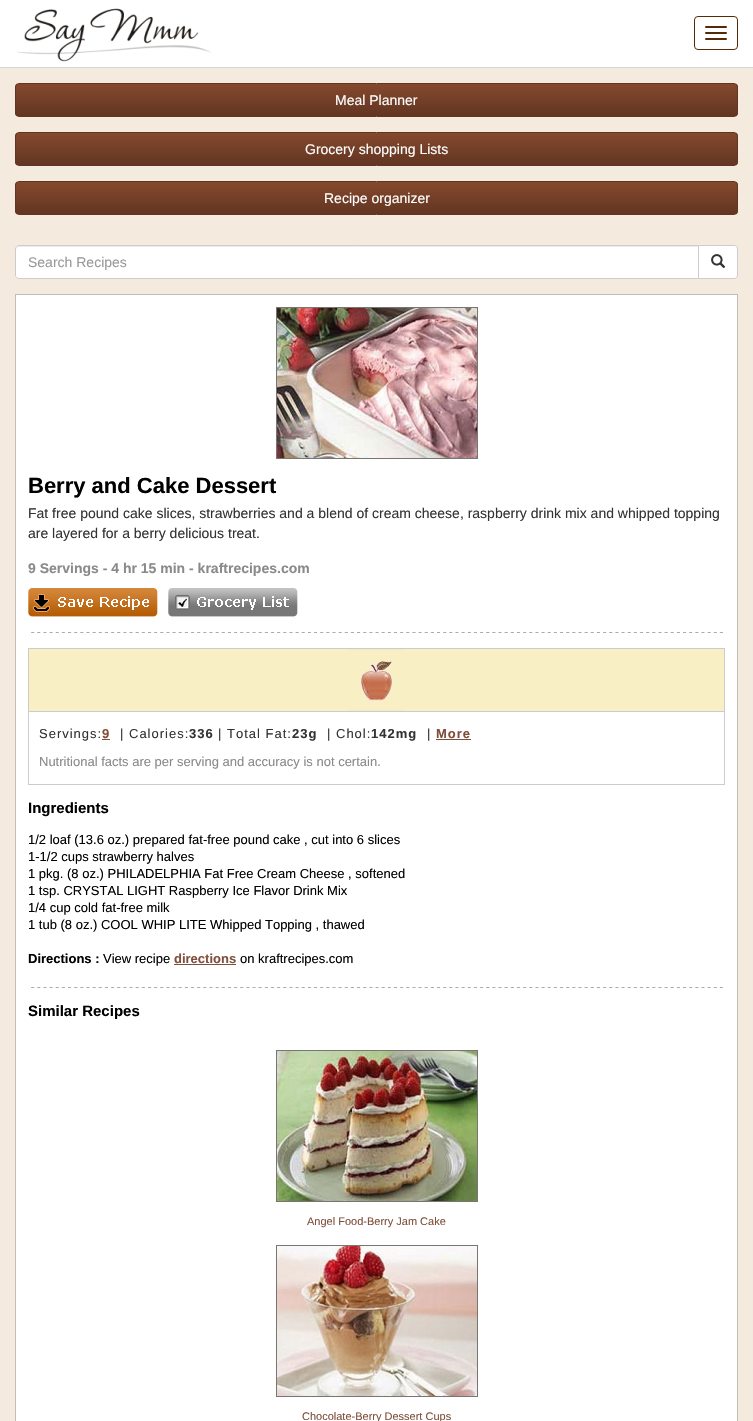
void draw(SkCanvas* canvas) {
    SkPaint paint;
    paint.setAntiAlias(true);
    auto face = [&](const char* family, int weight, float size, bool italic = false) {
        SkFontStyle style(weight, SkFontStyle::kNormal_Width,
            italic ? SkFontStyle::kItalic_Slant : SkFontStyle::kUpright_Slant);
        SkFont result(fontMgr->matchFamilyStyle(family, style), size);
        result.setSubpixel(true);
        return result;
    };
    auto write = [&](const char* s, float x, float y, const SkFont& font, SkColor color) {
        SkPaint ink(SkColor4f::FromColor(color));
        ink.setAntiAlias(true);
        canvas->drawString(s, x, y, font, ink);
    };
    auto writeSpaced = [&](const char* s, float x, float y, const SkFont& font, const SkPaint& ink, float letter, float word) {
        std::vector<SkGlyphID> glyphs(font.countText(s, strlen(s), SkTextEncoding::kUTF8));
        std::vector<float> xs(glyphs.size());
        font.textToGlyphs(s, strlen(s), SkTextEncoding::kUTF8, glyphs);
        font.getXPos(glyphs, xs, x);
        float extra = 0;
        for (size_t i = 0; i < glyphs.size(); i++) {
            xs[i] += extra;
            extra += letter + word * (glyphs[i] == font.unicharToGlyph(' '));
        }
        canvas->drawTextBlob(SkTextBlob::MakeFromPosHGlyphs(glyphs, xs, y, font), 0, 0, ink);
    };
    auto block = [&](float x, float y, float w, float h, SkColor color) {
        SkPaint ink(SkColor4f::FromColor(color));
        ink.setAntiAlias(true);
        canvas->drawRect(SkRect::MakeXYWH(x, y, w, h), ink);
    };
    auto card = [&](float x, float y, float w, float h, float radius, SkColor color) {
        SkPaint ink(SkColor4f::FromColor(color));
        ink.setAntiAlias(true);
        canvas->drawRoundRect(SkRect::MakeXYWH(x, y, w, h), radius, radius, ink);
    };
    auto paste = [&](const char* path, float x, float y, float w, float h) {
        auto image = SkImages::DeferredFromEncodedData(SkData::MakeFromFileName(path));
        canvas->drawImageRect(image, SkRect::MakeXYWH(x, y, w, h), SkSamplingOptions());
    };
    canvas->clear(SkColorSetRGB(244, 234, 222));
    block(0, 0, 753, 67, SK_ColorWHITE);
    block(0, 67, 753, 1, SkColorSetRGB(213, 213, 213));
    paste("pic1.png", 17, 8, 195, 54);
    paint.setStyle(SkPaint::kStroke_Style);
    paint.setStrokeWidth(1);
    paint.setColor(SkColorSetRGB(82, 43, 7));
    canvas->drawRoundRect(SkRect::MakeXYWH(694.5f, 16.5f, 43, 33), 3.5f, 3.5f, paint);
    card(705, 26, 22, 2, 1, SkColorSetRGB(82, 43, 7));
    card(705, 32, 22, 2, 1, SkColorSetRGB(82, 43, 7));
    card(705, 38, 22, 2, 1, SkColorSetRGB(82, 43, 7));
    canvas->save();
    canvas->clipPath(SkPathBuilder().moveTo(19, 83).lineTo(734, 83).cubicTo(736, 83, 738, 85, 738, 87).lineTo(738, 113).cubicTo(738, 115, 736, 117, 734, 117).lineTo(19, 117).cubicTo(17, 117, 15, 115, 15, 113).lineTo(15, 87).cubicTo(15, 85, 17, 83, 19, 83).close().detach(), true);
    paint.setStyle(SkPaint::kFill_Style);
    {
        const SkColor colors[] = {SkColorSetRGB(133, 73, 45), SkColorSetRGB(98, 53, 34)};
        const float stops[] = {0, 1};
        const SkPoint ends[] = {{16, 84}, {16, 116}};
        paint.setShader(SkGradientShader::MakeLinear(ends, colors, stops, 2, SkTileMode::kClamp));
        paint.setAlpha(255);
    }
    canvas->drawRect(SkRect::MakeXYWH(15, 84, 723, 32), paint);
    canvas->restore();
    paint.setStyle(SkPaint::kStroke_Style);
    paint.setShader(nullptr);
    paint.setColor(SkColorSetRGB(98, 53, 34));
    canvas->drawRoundRect(SkRect::MakeXYWH(15.5f, 83.5f, 722, 33), 3.5f, 3.5f, paint);
    auto kFont1 = face("Liberation Sans", 400, 14);
    write("Meal Planner", 335, 105, kFont1, SK_ColorWHITE);
    canvas->save();
    canvas->clipPath(SkPathBuilder().moveTo(19, 132).lineTo(734, 132).cubicTo(736, 132, 738, 134, 738, 136).lineTo(738, 162).cubicTo(738, 164, 736, 166, 734, 166).lineTo(19, 166).cubicTo(17, 166, 15, 164, 15, 162).lineTo(15, 136).cubicTo(15, 134, 17, 132, 19, 132).close().detach(), true);
    paint.setStyle(SkPaint::kFill_Style);
    {
        const SkColor colors[] = {SkColorSetRGB(133, 73, 45), SkColorSetRGB(98, 53, 34)};
        const float stops[] = {0, 1};
        const SkPoint ends[] = {{16, 133}, {16, 165}};
        paint.setShader(SkGradientShader::MakeLinear(ends, colors, stops, 2, SkTileMode::kClamp));
        paint.setAlpha(255);
    }
    canvas->drawRect(SkRect::MakeXYWH(15, 133, 723, 32), paint);
    canvas->restore();
    paint.setStyle(SkPaint::kStroke_Style);
    paint.setShader(nullptr);
    paint.setColor(SkColorSetRGB(98, 53, 34));
    canvas->drawRoundRect(SkRect::MakeXYWH(15.5f, 132.5f, 722, 33), 3.5f, 3.5f, paint);
    write("Grocery shopping Lists", 305, 154, kFont1, SK_ColorWHITE);
    canvas->save();
    canvas->clipPath(SkPathBuilder().moveTo(19, 181).lineTo(734, 181).cubicTo(736, 181, 738, 183, 738, 185).lineTo(738, 211).cubicTo(738, 213, 736, 215, 734, 215).lineTo(19, 215).cubicTo(17, 215, 15, 213, 15, 211).lineTo(15, 185).cubicTo(15, 183, 17, 181, 19, 181).close().detach(), true);
    paint.setStyle(SkPaint::kFill_Style);
    {
        const SkColor colors[] = {SkColorSetRGB(133, 73, 45), SkColorSetRGB(98, 53, 34)};
        const float stops[] = {0, 1};
        const SkPoint ends[] = {{16, 182}, {16, 214}};
        paint.setShader(SkGradientShader::MakeLinear(ends, colors, stops, 2, SkTileMode::kClamp));
        paint.setAlpha(255);
    }
    canvas->drawRect(SkRect::MakeXYWH(15, 182, 723, 32), paint);
    canvas->restore();
    paint.setStyle(SkPaint::kStroke_Style);
    paint.setShader(nullptr);
    paint.setColor(SkColorSetRGB(98, 53, 34));
    canvas->drawRoundRect(SkRect::MakeXYWH(15.5f, 181.5f, 722, 33), 3.5f, 3.5f, paint);
    write("Recipe organizer", 324, 203, kFont1, SK_ColorWHITE);
    paint.setStyle(SkPaint::kFill_Style);
    paint.setColor(SK_ColorWHITE);
    canvas->drawPath(SkPathBuilder().moveTo(698.5f, 245.5f).lineTo(734, 245.5f).cubicTo(736, 245.5f, 737.5f, 247, 737.5f, 249).lineTo(737.5f, 275).cubicTo(737.5f, 277, 736, 278.5f, 734, 278.5f).lineTo(698.5f, 278.5f).close().detach(), paint);
    paint.setStyle(SkPaint::kStroke_Style);
    paint.setColor(SkColorSetRGB(204, 204, 204));
    canvas->drawPath(SkPathBuilder().moveTo(698.5f, 245.5f).lineTo(734, 245.5f).cubicTo(736, 245.5f, 737.5f, 247, 737.5f, 249).lineTo(737.5f, 275).cubicTo(737.5f, 277, 736, 278.5f, 734, 278.5f).lineTo(698.5f, 278.5f).close().detach(), paint);
    paint.setStyle(SkPaint::kFill_Style);
    paint.setColor(SK_ColorWHITE);
    canvas->drawPath(SkPathBuilder().moveTo(19, 245).lineTo(699, 245).lineTo(699, 279).lineTo(19, 279).cubicTo(17, 279, 15, 277, 15, 275).lineTo(15, 249).cubicTo(15, 247, 17, 245, 19, 245).close().detach(), paint);
    paint.setColor(SkColorSetRGB(236, 236, 236));
    canvas->drawPath(SkPathBuilder().moveTo(19, 247).lineTo(698, 247).lineTo(698, 246).lineTo(19, 246).cubicTo(17, 246, 16, 247, 16, 249).lineTo(16, 250).cubicTo(16, 248, 17, 247, 19, 247).close().detach(), paint);
    paint.setStyle(SkPaint::kStroke_Style);
    paint.setColor(SkColorSetRGB(204, 204, 204));
    canvas->drawPath(SkPathBuilder().moveTo(19, 245.5f).lineTo(698.5f, 245.5f).lineTo(698.5f, 278.5f).lineTo(19, 278.5f).cubicTo(17, 278.5f, 15.5f, 277, 15.5f, 275).lineTo(15.5f, 249).cubicTo(15.5f, 247, 17, 245.5f, 19, 245.5f).close().detach(), paint);
    write("Search Recipes", 28, 267, kFont1, SkColorSetRGB(153, 153, 153));
    paste("pic2.png", 711, 254, 15, 14);
    paint.setStyle(SkPaint::kFill_Style);
    paint.setColor(SK_ColorWHITE);
    canvas->drawRect(SkRect::MakeXYWH(15.5f, 294.5f, 722, 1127), paint);
    paint.setStyle(SkPaint::kStroke_Style);
    paint.setColor(SkColorSetRGB(194, 190, 183));
    canvas->drawRect(SkRect::MakeXYWH(15.5f, 294.5f, 722, 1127), paint);
    paint.setColor(SkColorSetRGB(121, 118, 113));
    canvas->drawRect(SkRect::MakeXYWH(276.5f, 307.5f, 201, 151), paint);
    paste("pic3.png", 277, 308, 200, 150);
    auto kFont2 = face("Liberation Sans", 700, 22);
    write("Berry and Cake Dessert", 28, 493, kFont2, SK_ColorBLACK);
    write("Fat free pound cake slices, strawberries and a blend of cream cheese, raspberry drink mix and whipped topping", 28, 518, kFont1, SkColorSetRGB(51, 51, 51));
    write("are layered for a berry delicious treat.", 28, 538, kFont1, SkColorSetRGB(51, 51, 51));
    auto kFont3 = face("Liberation Sans", 700, 14);
    write("9 Servings - 4 hr 15 min - kraftrecipes.com", 28, 573, kFont3, SkColorSetRGB(138, 138, 138));
    paste("pic4.png", 28, 588, 130, 29);
    paste("pic5.png", 168, 588, 130, 29);
    paste("pic6.png", 31, 632, 692, 1);
    paint.setColor(SkColorSetRGB(204, 204, 204));
    canvas->drawRect(SkRect::MakeXYWH(28.5f, 648.5f, 696, 136), paint);
    block(29, 649, 695, 62, SkColorSetRGB(248, 239, 196));
    block(29, 711, 695, 1, SkColorSetRGB(204, 204, 204));
    paste("pic7.png", 350, 649, 53, 62);
    auto kFont4 = face("Liberation Sans", 400, 13);
    paint.setStyle(SkPaint::kFill_Style);
    paint.setColor(SkColorSetRGB(51, 51, 51));
    writeSpaced("Servings:", 39, 738, kFont4, paint, 1, 0);
    auto kFont5 = face("Liberation Sans", 700, 13);
    paint.setColor(SkColorSetRGB(128, 79, 60));
    writeSpaced("9", 102, 738, kFont5, paint, 1, 0);
    block(102, 739, 8, 1, SkColorSetRGB(128, 79, 60));
    paint.setColor(SkColorSetRGB(51, 51, 51));
    writeSpaced("| Calories:", 120, 738, kFont4, paint, 1, 0);
    writeSpaced("336", 189, 738, kFont5, paint, 1, 0);
    writeSpaced("| Total Fat:", 218, 738, kFont4, paint, 1, 0);
    writeSpaced("23g", 292, 738, kFont5, paint, 1, 0);
    writeSpaced("| Chol:", 327, 738, kFont4, paint, 1, 0);
    writeSpaced("142mg", 371, 738, kFont5, paint, 1, 0);
    writeSpaced("|", 427, 738, kFont4, paint, 1, 0);
    paint.setColor(SkColorSetRGB(128, 79, 60));
    writeSpaced("More", 436, 738, kFont5, paint, 1, 0);
    block(436, 739, 35, 1, SkColorSetRGB(128, 79, 60));
    write("Nutritional facts are per serving and accuracy is not certain.", 39, 766, kFont4, SkColorSetRGB(138, 138, 138));
    auto kFont6 = face("Liberation Sans", 700, 15);
    write("Ingredients", 28, 813, kFont6, SK_ColorBLACK);
    write("1/2 loaf (13.6 oz.) prepared fat-free pound cake , cut into 6 slices", 28, 844, kFont4, SK_ColorBLACK);
    write("1-1/2 cups strawberry halves", 28, 861, kFont4, SK_ColorBLACK);
    write("1 pkg. (8 oz.) PHILADELPHIA Fat Free Cream Cheese , softened", 28, 878, kFont4, SK_ColorBLACK);
    write("1 tsp. CRYSTAL LIGHT Raspberry Ice Flavor Drink Mix", 28, 895, kFont4, SK_ColorBLACK);
    write("1/4 cup cold fat-free milk", 28, 912, kFont4, SK_ColorBLACK);
    write("1 tub (8 oz.) COOL WHIP LITE Whipped Topping , thawed", 28, 929, kFont4, SK_ColorBLACK);
    write("Directions :", 28, 963, kFont5, SK_ColorBLACK);
    write("View recipe", 103, 963, kFont4, SK_ColorBLACK);
    write("directions", 174, 963, kFont5, SkColorSetRGB(128, 79, 60));
    block(174, 964, 62, 1, SkColorSetRGB(128, 79, 60));
    write("on kraftrecipes.com", 240, 963, kFont4, SK_ColorBLACK);
    paste("pic6.png", 31, 987, 692, 1);
    write("Similar Recipes", 28, 1016, kFont6, SK_ColorBLACK);
    paint.setStyle(SkPaint::kStroke_Style);
    paint.setColor(SkColorSetRGB(121, 118, 113));
    canvas->drawRect(SkRect::MakeXYWH(276.5f, 1050.5f, 201, 151), paint);
    paste("pic8.png", 277, 1051, 200, 150);
    auto kFont7 = face("Liberation Sans", 400, 11);
    write("Angel Food-Berry Jam Cake", 307, 1225, kFont7, SkColorSetRGB(128, 79, 60));
    canvas->drawRect(SkRect::MakeXYWH(276.5f, 1245.5f, 201, 151), paint);
    paste("pic9.png", 277, 1246, 200, 150);
    write("Chocolate-Berry Dessert Cups", 302, 1420, kFont7, SkColorSetRGB(128, 79, 60));
}
